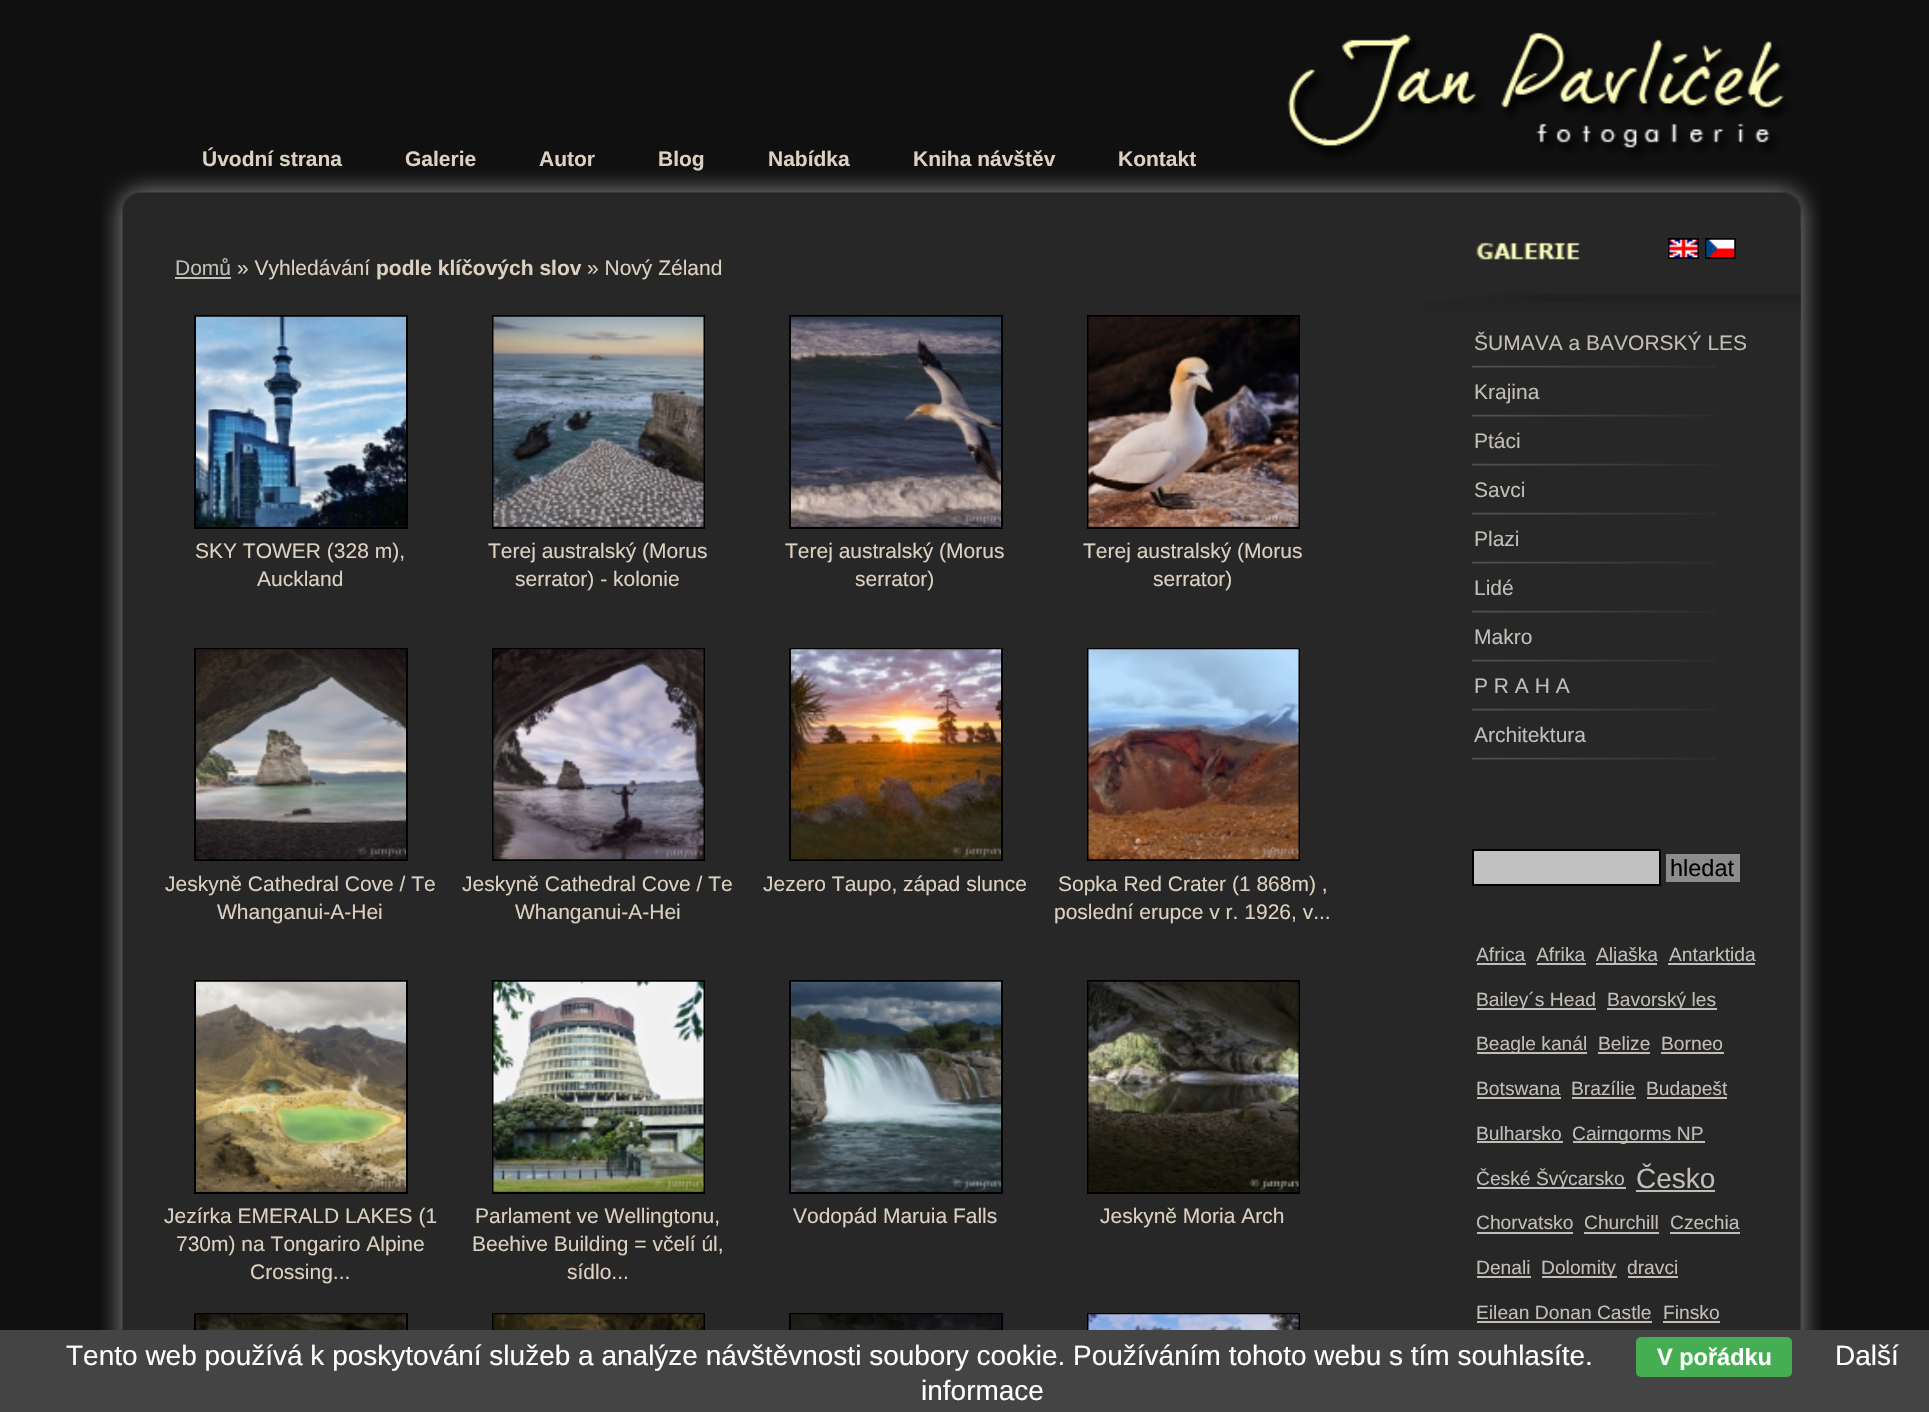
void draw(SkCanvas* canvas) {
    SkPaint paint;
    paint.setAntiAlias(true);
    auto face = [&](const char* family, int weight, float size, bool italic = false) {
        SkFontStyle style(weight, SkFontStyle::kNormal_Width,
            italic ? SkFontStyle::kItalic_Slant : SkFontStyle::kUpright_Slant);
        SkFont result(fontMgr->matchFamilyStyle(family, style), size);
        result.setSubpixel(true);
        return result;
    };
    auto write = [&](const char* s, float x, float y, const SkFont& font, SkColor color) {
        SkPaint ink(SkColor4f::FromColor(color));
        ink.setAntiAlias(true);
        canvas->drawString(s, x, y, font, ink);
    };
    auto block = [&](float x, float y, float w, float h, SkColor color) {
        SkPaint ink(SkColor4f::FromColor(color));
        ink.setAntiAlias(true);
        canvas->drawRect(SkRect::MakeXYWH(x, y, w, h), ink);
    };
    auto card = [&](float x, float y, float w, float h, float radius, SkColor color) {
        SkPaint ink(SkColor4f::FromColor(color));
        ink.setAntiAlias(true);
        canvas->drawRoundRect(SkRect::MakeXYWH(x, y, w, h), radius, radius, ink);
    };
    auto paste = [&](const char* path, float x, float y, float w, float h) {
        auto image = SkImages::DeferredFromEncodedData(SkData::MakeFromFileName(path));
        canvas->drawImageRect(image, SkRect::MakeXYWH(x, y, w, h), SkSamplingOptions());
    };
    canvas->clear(SkColorSetRGB(16, 16, 16));
    paste("pic1.png", 101, 217, 1721, 1113);
    paste("pic2.png", 101, 0, 1721, 217);
    auto kFont1 = face("Liberation Sans", 700, 21);
    write("Úvodní strana", 202, 166, kFont1, SkColorSetRGB(220, 208, 193));
    write("Galerie", 405, 166, kFont1, SkColorSetRGB(220, 208, 193));
    write("Autor", 539, 166, kFont1, SkColorSetRGB(220, 208, 193));
    write("Blog", 658, 166, kFont1, SkColorSetRGB(220, 208, 193));
    write("Nabídka", 768, 166, kFont1, SkColorSetRGB(220, 208, 193));
    write("Kniha návštěv", 913, 166, kFont1, SkColorSetRGB(220, 208, 193));
    write("Kontakt", 1118, 166, kFont1, SkColorSetRGB(220, 208, 193));
    paste("pic21.png", 1425, 229, 376, 90);
    paint.setStyle(SkPaint::kStroke_Style);
    paint.setStrokeWidth(2);
    paint.setColor(SK_ColorBLACK);
    canvas->drawRect(SkRect::MakeXYWH(1669, 239, 29, 19), paint);
    paste("pic3.png", 1669, 239, 29, 19);
    canvas->drawRect(SkRect::MakeXYWH(1706, 239, 29, 19), paint);
    paste("pic4.png", 1706, 239, 29, 19);
    auto kFont2 = face("Liberation Sans", 400, 21);
    write("Domů", 175, 275, kFont2, SkColorSetRGB(194, 189, 183));
    block(175, 277, 56, 2, SkColorSetRGB(194, 189, 183));
    write("» Vyhledávání", 237, 275, kFont2, SkColorSetRGB(220, 208, 193));
    write("podle klíčových slov", 376, 275, kFont1, SkColorSetRGB(220, 208, 193));
    write("» Nový Zéland", 587, 275, kFont2, SkColorSetRGB(220, 208, 193));
    canvas->drawRect(SkRect::MakeXYWH(195, 316, 212, 212), paint);
    paste("pic5.png", 196, 316, 210, 211);
    write("SKY TOWER (328 m),", 195, 558, kFont2, SkColorSetRGB(220, 208, 193));
    write("Auckland", 257, 586, kFont2, SkColorSetRGB(220, 208, 193));
    canvas->drawRect(SkRect::MakeXYWH(493, 316, 211, 212), paint);
    paste("pic6.png", 493, 316, 211, 211);
    write("Terej australský (Morus", 488, 558, kFont2, SkColorSetRGB(220, 208, 193));
    write("serrator) - kolonie", 515, 586, kFont2, SkColorSetRGB(220, 208, 193));
    canvas->drawRect(SkRect::MakeXYWH(790, 316, 212, 212), paint);
    paste("pic7.png", 791, 316, 210, 211);
    write("Terej australský (Morus", 785, 558, kFont2, SkColorSetRGB(220, 208, 193));
    write("serrator)", 855, 586, kFont2, SkColorSetRGB(220, 208, 193));
    canvas->drawRect(SkRect::MakeXYWH(1088, 316, 211, 212), paint);
    paste("pic8.png", 1088, 316, 211, 211);
    write("Terej australský (Morus", 1083, 558, kFont2, SkColorSetRGB(220, 208, 193));
    write("serrator)", 1153, 586, kFont2, SkColorSetRGB(220, 208, 193));
    canvas->drawRect(SkRect::MakeXYWH(195, 649, 212, 211), paint);
    paste("pic9.png", 196, 649, 210, 211);
    write("Jeskyně Cathedral Cove / Te", 165, 891, kFont2, SkColorSetRGB(220, 208, 193));
    write("Whanganui-A-Hei", 217, 919, kFont2, SkColorSetRGB(220, 208, 193));
    canvas->drawRect(SkRect::MakeXYWH(493, 649, 211, 211), paint);
    paste("pic10.png", 493, 649, 211, 211);
    write("Jeskyně Cathedral Cove / Te", 462, 891, kFont2, SkColorSetRGB(220, 208, 193));
    write("Whanganui-A-Hei", 515, 919, kFont2, SkColorSetRGB(220, 208, 193));
    canvas->drawRect(SkRect::MakeXYWH(790, 649, 212, 211), paint);
    paste("pic11.png", 791, 649, 210, 211);
    write("Jezero Taupo, západ slunce", 763, 891, kFont2, SkColorSetRGB(220, 208, 193));
    canvas->drawRect(SkRect::MakeXYWH(1088, 649, 211, 211), paint);
    paste("pic12.png", 1088, 649, 211, 211);
    write("Sopka Red Crater (1 868m) ,", 1058, 891, kFont2, SkColorSetRGB(220, 208, 193));
    write("poslední erupce v r. 1926, v...", 1054, 919, kFont2, SkColorSetRGB(220, 208, 193));
    canvas->drawRect(SkRect::MakeXYWH(195, 981, 212, 212), paint);
    paste("pic13.png", 196, 981, 210, 211);
    write("Jezírka EMERALD LAKES (1", 164, 1223, kFont2, SkColorSetRGB(220, 208, 193));
    write("730m) na Tongariro Alpine", 176, 1251, kFont2, SkColorSetRGB(220, 208, 193));
    write("Crossing...", 250, 1279, kFont2, SkColorSetRGB(220, 208, 193));
    canvas->drawRect(SkRect::MakeXYWH(493, 981, 211, 212), paint);
    paste("pic14.png", 493, 981, 211, 211);
    write("Parlament ve Wellingtonu,", 475, 1223, kFont2, SkColorSetRGB(220, 208, 193));
    write("Beehive Building = včelí úl,", 472, 1251, kFont2, SkColorSetRGB(220, 208, 193));
    write("sídlo...", 567, 1279, kFont2, SkColorSetRGB(220, 208, 193));
    canvas->drawRect(SkRect::MakeXYWH(790, 981, 212, 212), paint);
    paste("pic15.png", 791, 981, 210, 211);
    write("Vodopád Maruia Falls", 793, 1223, kFont2, SkColorSetRGB(220, 208, 193));
    canvas->drawRect(SkRect::MakeXYWH(1088, 981, 211, 212), paint);
    paste("pic16.png", 1088, 981, 211, 211);
    write("Jeskyně Moria Arch", 1100, 1223, kFont2, SkColorSetRGB(220, 208, 193));
    canvas->drawRect(SkRect::MakeXYWH(195, 1314, 212, 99), paint);
    paste("pic17.png", 196, 1314, 210, 16);
    canvas->drawRect(SkRect::MakeXYWH(493, 1314, 211, 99), paint);
    paste("pic18.png", 493, 1314, 211, 16);
    canvas->drawRect(SkRect::MakeXYWH(790, 1314, 212, 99), paint);
    paste("pic19.png", 791, 1314, 210, 16);
    canvas->drawRect(SkRect::MakeXYWH(1088, 1314, 211, 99), paint);
    paste("pic20.png", 1088, 1314, 211, 16);
    paste("pic22.png", 1425, 242, 156, 60);
    paste("pic23.png", 1471, 365, 245, 3);
    write("ŠUMAVA a BAVORSKÝ LES", 1474, 350, kFont2, SkColorSetRGB(194, 189, 183));
    paste("pic23.png", 1471, 414, 245, 3);
    write("Krajina", 1474, 399, kFont2, SkColorSetRGB(194, 189, 183));
    paste("pic23.png", 1471, 463, 245, 3);
    write("Ptáci", 1474, 448, kFont2, SkColorSetRGB(194, 189, 183));
    paste("pic23.png", 1471, 512, 245, 3);
    write("Savci", 1474, 497, kFont2, SkColorSetRGB(194, 189, 183));
    paste("pic23.png", 1471, 561, 245, 3);
    write("Plazi", 1474, 546, kFont2, SkColorSetRGB(194, 189, 183));
    paste("pic23.png", 1471, 610, 245, 3);
    write("Lidé", 1474, 595, kFont2, SkColorSetRGB(194, 189, 183));
    paste("pic23.png", 1471, 659, 245, 3);
    write("Makro", 1474, 644, kFont2, SkColorSetRGB(194, 189, 183));
    paste("pic23.png", 1471, 708, 245, 3);
    write("P R A H A", 1474, 693, kFont2, SkColorSetRGB(194, 189, 183));
    paste("pic23.png", 1471, 757, 245, 3);
    write("Architektura", 1474, 742, kFont2, SkColorSetRGB(194, 189, 183));
    paint.setStyle(SkPaint::kFill_Style);
    paint.setColor(SkColorSetRGB(193, 193, 193));
    canvas->drawRect(SkRect::MakeXYWH(1473, 850, 187, 35), paint);
    paint.setStyle(SkPaint::kStroke_Style);
    paint.setColor(SK_ColorBLACK);
    canvas->drawRect(SkRect::MakeXYWH(1473, 850, 187, 35), paint);
    block(1666, 854, 74, 28, SkColorSetRGB(140, 140, 140));
    auto kFont3 = face("Liberation Sans", 400, 23.5f);
    write("hledat", 1670, 876, kFont3, SK_ColorBLACK);
    auto kFont4 = face("Liberation Sans", 400, 19.25f);
    write("Africa", 1476, 961, kFont4, SkColorSetRGB(194, 189, 183));
    block(1477, 963, 49, 2, SkColorSetRGB(194, 189, 183));
    write("Afrika", 1536, 961, kFont4, SkColorSetRGB(194, 189, 183));
    block(1537, 963, 49, 2, SkColorSetRGB(194, 189, 183));
    block(1596, 963, 61, 2, SkColorSetRGB(194, 189, 183));
    write("Aljaška", 1596, 961, kFont4, SkColorSetRGB(194, 189, 183));
    write("Antarktida", 1669, 961, kFont4, SkColorSetRGB(194, 189, 183));
    block(1668, 963, 87, 2, SkColorSetRGB(194, 189, 183));
    block(1477, 1008, 119, 2, SkColorSetRGB(194, 189, 183));
    write("Bailey´s Head", 1476, 1006, kFont4, SkColorSetRGB(194, 189, 183));
    block(1607, 1008, 110, 2, SkColorSetRGB(194, 189, 183));
    write("Bavorský les", 1607, 1006, kFont4, SkColorSetRGB(194, 189, 183));
    block(1477, 1052, 110, 2, SkColorSetRGB(194, 189, 183));
    write("Beagle kanál", 1476, 1050, kFont4, SkColorSetRGB(194, 189, 183));
    write("Belize", 1598, 1050, kFont4, SkColorSetRGB(194, 189, 183));
    block(1598, 1052, 52, 2, SkColorSetRGB(194, 189, 183));
    write("Borneo", 1661, 1050, kFont4, SkColorSetRGB(194, 189, 183));
    block(1661, 1052, 63, 2, SkColorSetRGB(194, 189, 183));
    write("Botswana", 1476, 1095, kFont4, SkColorSetRGB(194, 189, 183));
    block(1477, 1097, 84, 2, SkColorSetRGB(194, 189, 183));
    write("Brazílie", 1571, 1095, kFont4, SkColorSetRGB(194, 189, 183));
    block(1572, 1097, 64, 2, SkColorSetRGB(194, 189, 183));
    block(1647, 1097, 80, 2, SkColorSetRGB(194, 189, 183));
    write("Budapešt", 1646, 1095, kFont4, SkColorSetRGB(194, 189, 183));
    write("Bulharsko", 1476, 1140, kFont4, SkColorSetRGB(194, 189, 183));
    block(1477, 1141, 86, 2, SkColorSetRGB(194, 189, 183));
    block(1573, 1141, 132, 2, SkColorSetRGB(194, 189, 183));
    write("Cairngorms NP", 1572, 1140, kFont4, SkColorSetRGB(194, 189, 183));
    block(1477, 1187, 149, 2, SkColorSetRGB(194, 189, 183));
    write("České Švýcarsko", 1476, 1185, kFont4, SkColorSetRGB(194, 189, 183));
    auto kFont5 = face("Liberation Sans", 400, 28);
    write("Česko", 1636, 1188, kFont5, SkColorSetRGB(194, 189, 183));
    block(1636, 1190, 79, 2, SkColorSetRGB(194, 189, 183));
    write("Chorvatsko", 1476, 1229, kFont4, SkColorSetRGB(194, 189, 183));
    block(1477, 1232, 96, 2, SkColorSetRGB(194, 189, 183));
    write("Churchill", 1584, 1229, kFont4, SkColorSetRGB(194, 189, 183));
    block(1584, 1232, 75, 2, SkColorSetRGB(194, 189, 183));
    write("Czechia", 1670, 1229, kFont4, SkColorSetRGB(194, 189, 183));
    block(1670, 1232, 70, 2, SkColorSetRGB(194, 189, 183));
    write("Denali", 1476, 1274, kFont4, SkColorSetRGB(194, 189, 183));
    block(1477, 1276, 54, 2, SkColorSetRGB(194, 189, 183));
    block(1542, 1276, 75, 2, SkColorSetRGB(194, 189, 183));
    write("Dolomity", 1541, 1274, kFont4, SkColorSetRGB(194, 189, 183));
    write("dravci", 1627, 1274, kFont4, SkColorSetRGB(194, 189, 183));
    block(1628, 1276, 50, 2, SkColorSetRGB(194, 189, 183));
    write("Eilean Donan Castle", 1476, 1319, kFont4, SkColorSetRGB(194, 189, 183));
    block(1477, 1321, 175, 2, SkColorSetRGB(194, 189, 183));
    write("Finsko", 1663, 1319, kFont4, SkColorSetRGB(194, 189, 183));
    block(1663, 1321, 57, 2, SkColorSetRGB(194, 189, 183));
    block(0, 1330, 1929, 82, SkColorSetRGB(68, 68, 68));
    write("Tento web používá k poskytování služeb a analýze návštěvnosti soubory cookie. Používáním tohoto webu s tím souhlasíte.", 66, 1365, kFont5, SK_ColorWHITE);
    card(1636, 1337, 156, 40, 5, SkColorSetRGB(69, 174, 82));
    auto kFont6 = face("Liberation Sans", 700, 23.5f);
    write("V pořádku", 1657, 1365, kFont6, SK_ColorWHITE);
    write("Další", 1835, 1365, kFont5, SK_ColorWHITE);
    write("informace", 921, 1400, kFont5, SK_ColorWHITE);
}
